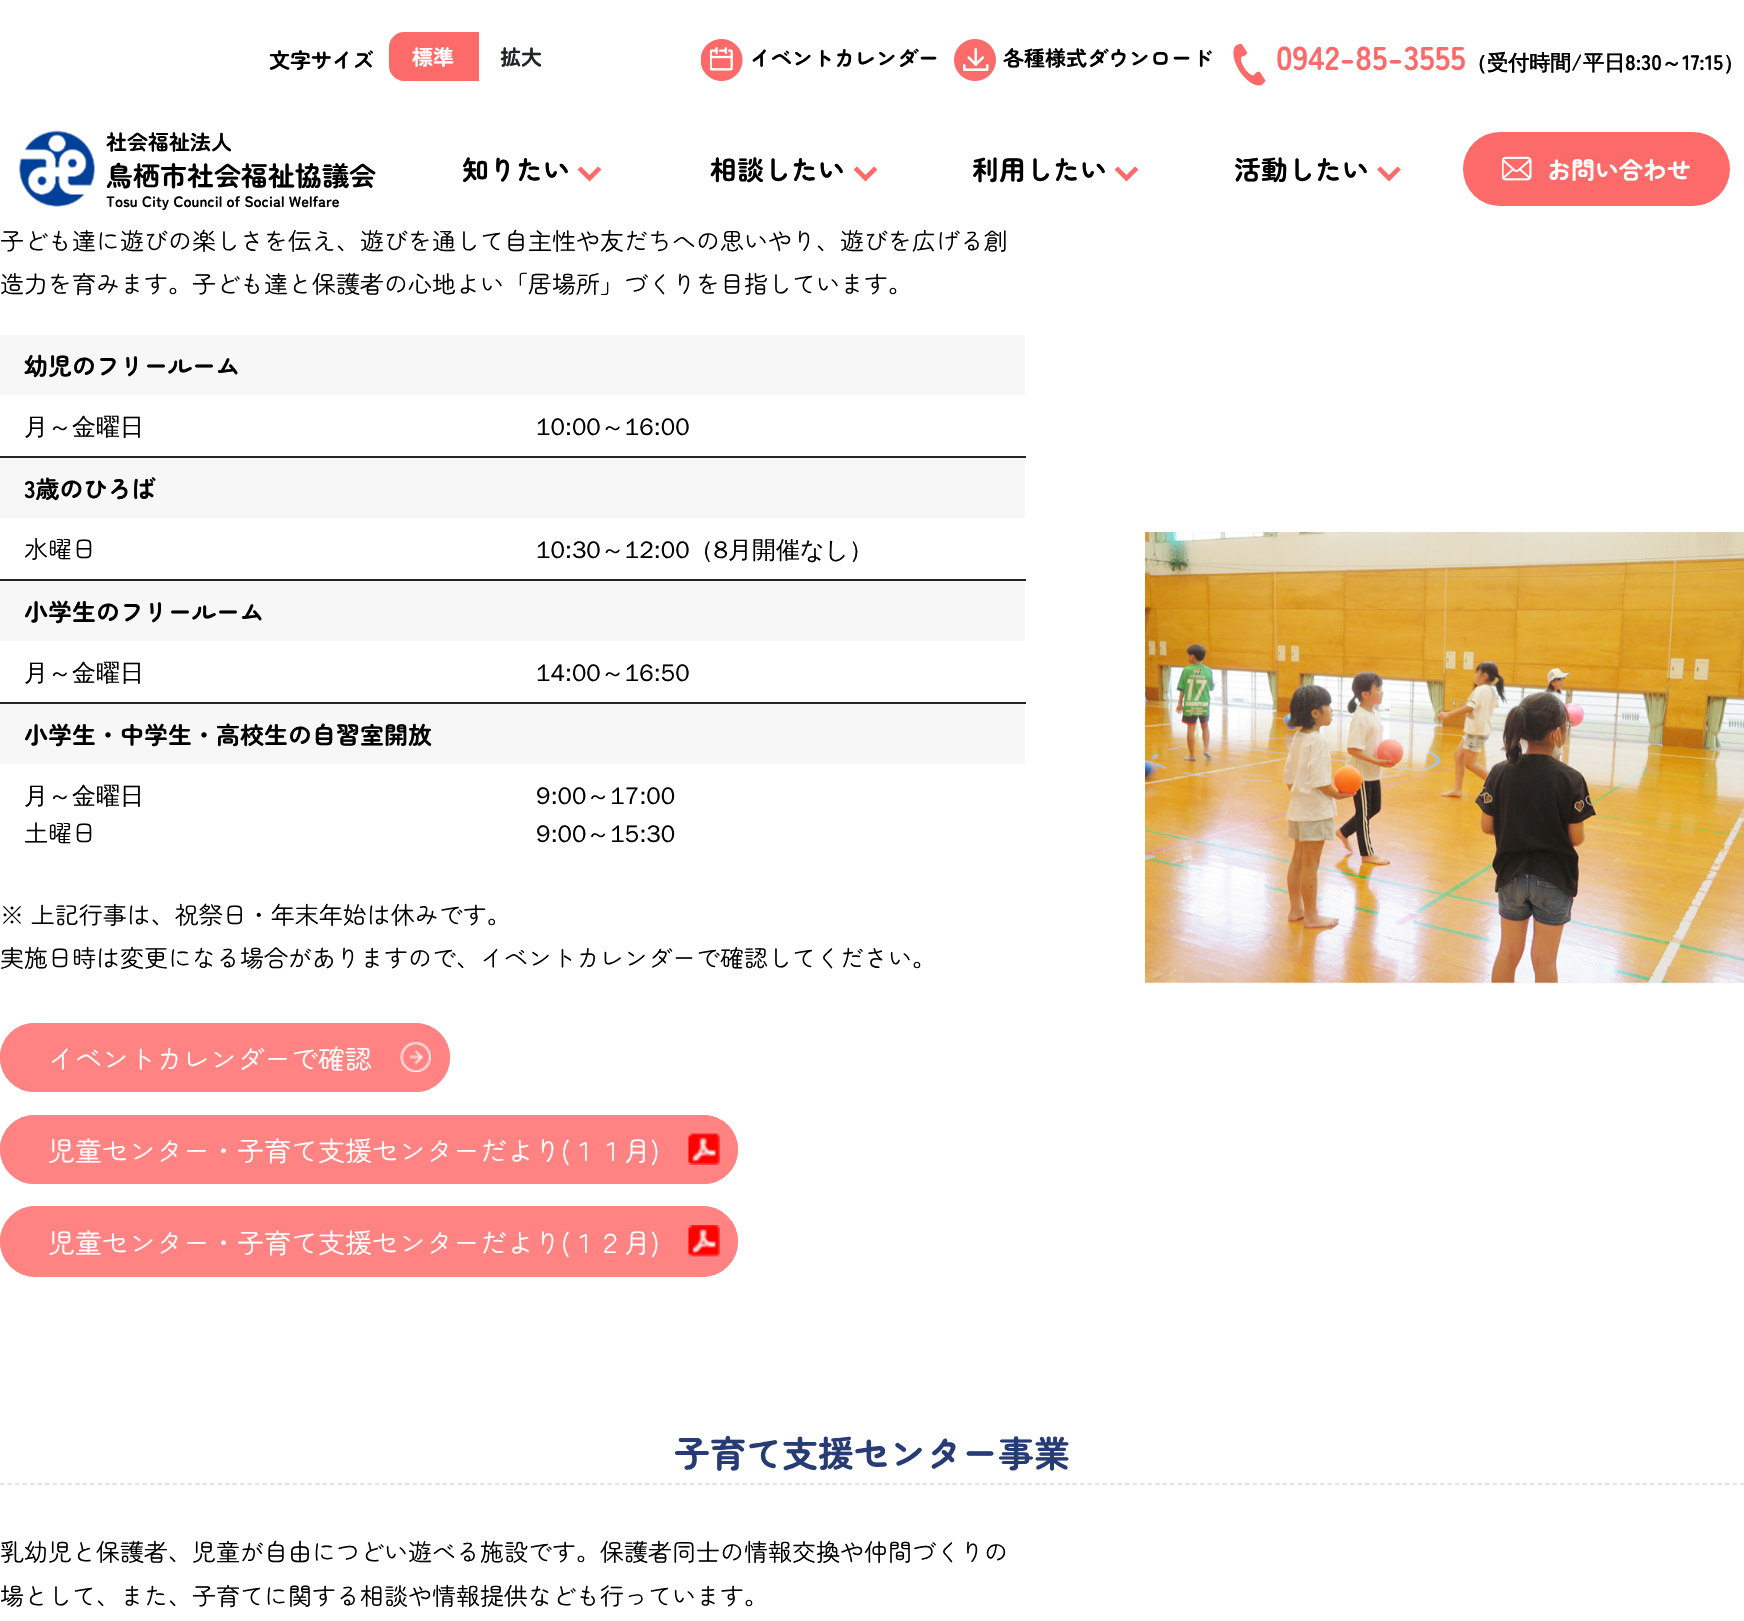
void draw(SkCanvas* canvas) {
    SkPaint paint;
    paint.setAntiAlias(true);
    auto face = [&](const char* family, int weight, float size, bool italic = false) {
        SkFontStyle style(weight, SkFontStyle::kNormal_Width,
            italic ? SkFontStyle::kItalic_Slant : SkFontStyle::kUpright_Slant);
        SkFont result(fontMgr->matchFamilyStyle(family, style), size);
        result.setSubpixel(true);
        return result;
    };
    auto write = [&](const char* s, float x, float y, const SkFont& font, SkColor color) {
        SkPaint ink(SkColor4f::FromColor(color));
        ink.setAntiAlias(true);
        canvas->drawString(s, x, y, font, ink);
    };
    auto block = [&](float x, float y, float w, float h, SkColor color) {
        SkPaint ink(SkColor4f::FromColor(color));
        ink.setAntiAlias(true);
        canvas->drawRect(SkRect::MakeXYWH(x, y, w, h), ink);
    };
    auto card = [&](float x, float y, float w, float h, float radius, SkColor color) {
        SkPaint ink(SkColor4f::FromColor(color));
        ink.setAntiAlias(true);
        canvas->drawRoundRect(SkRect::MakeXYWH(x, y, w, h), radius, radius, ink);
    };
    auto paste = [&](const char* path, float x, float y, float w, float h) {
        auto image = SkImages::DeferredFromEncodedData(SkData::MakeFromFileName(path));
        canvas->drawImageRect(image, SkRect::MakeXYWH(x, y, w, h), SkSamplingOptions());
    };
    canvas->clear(SK_ColorWHITE);
    auto kFont1 = face("Zen Maru Gothic", 700, 21);
    write("文字サイズ", 269, 68, kFont1, SK_ColorBLACK);
    paint.setColor(SkColorSetRGB(252, 106, 105));
    canvas->drawPath(SkPathBuilder().moveTo(404, 33).lineTo(478, 33).lineTo(478, 80).lineTo(404, 80).cubicTo(396.5f, 80, 390, 73.5f, 390, 66).lineTo(390, 47).cubicTo(390, 39.5f, 396.5f, 33, 404, 33).close().detach(), paint);
    paint.setStyle(SkPaint::kStroke_Style);
    paint.setStrokeWidth(2);
    canvas->drawPath(SkPathBuilder().moveTo(404, 33).lineTo(478, 33).lineTo(478, 80).lineTo(404, 80).cubicTo(396.5f, 80, 390, 73.5f, 390, 66).lineTo(390, 47).cubicTo(390, 39.5f, 396.5f, 33, 404, 33).close().detach(), paint);
    write("標準", 412, 65, kFont1, SK_ColorWHITE);
    write("拡大", 500, 65, kFont1, SkColorSetRGB(33, 37, 41));
    paste("pic1.png", 701, 39, 42, 42);
    write("イベントカレンダー", 750, 66, kFont1, SK_ColorBLACK);
    paste("pic2.png", 954, 39, 42, 42);
    write("各種様式ダウンロード", 1003, 66, kFont1, SK_ColorBLACK);
    paste("pic3.png", 1233, 44, 33, 42);
    auto kFont2 = face("Zen Maru Gothic", 700, 33);
    write("0942-85-3555", 1276, 70, kFont2, SkColorSetRGB(252, 106, 105));
    auto kFont3 = face("WenQuanYi Zen Hei", 700, 21);
    write("（受付時間", 1466, 70, kFont3, SK_ColorBLACK);
    write("/", 1571, 70, kFont1, SK_ColorBLACK);
    write("平日", 1583, 70, kFont3, SK_ColorBLACK);
    write("8:30", 1625, 70, kFont1, SK_ColorBLACK);
    write("～", 1661, 70, kFont3, SK_ColorBLACK);
    write("17:15", 1682, 70, kFont1, SK_ColorBLACK);
    write("）", 1723, 70, kFont3, SK_ColorBLACK);
    paste("pic4.png", 19, 130, 76, 77);
    write("社会福祉法人", 106, 150, kFont1, SK_ColorBLACK);
    auto kFont4 = face("Zen Maru Gothic", 700, 27);
    write("鳥栖市社会福祉協議会", 106, 186, kFont4, SK_ColorBLACK);
    auto kFont5 = face("Zen Maru Gothic", 700, 15);
    write("Tosu City Council of Social Welfare", 106, 207, kFont5, SK_ColorBLACK);
    write("知りたい", 462, 180, kFont4, SK_ColorBLACK);
    paint.setStyle(SkPaint::kFill_Style);
    canvas->drawPath(SkPathBuilder().moveTo(598, 166.5f).lineTo(589.5f, 175).lineTo(581, 166.5f).lineTo(577.5f, 169.5f).lineTo(589.5f, 181.5f).lineTo(601.5f, 169.5f).close().detach(), paint);
    write("相談したい", 710, 180, kFont4, SK_ColorBLACK);
    canvas->drawPath(SkPathBuilder().moveTo(874, 166.5f).lineTo(865.5f, 175).lineTo(857, 166.5f).lineTo(853.5f, 169.5f).lineTo(865.5f, 181.5f).lineTo(877.5f, 169.5f).close().detach(), paint);
    write("利用したい", 972, 180, kFont4, SK_ColorBLACK);
    canvas->drawPath(SkPathBuilder().moveTo(1135, 166.5f).lineTo(1126.5f, 175).lineTo(1118, 166.5f).lineTo(1114.5f, 169.5f).lineTo(1126.5f, 181.5f).lineTo(1138.5f, 169.5f).close().detach(), paint);
    write("活動したい", 1234, 180, kFont4, SK_ColorBLACK);
    canvas->drawPath(SkPathBuilder().moveTo(1397.5f, 166.5f).lineTo(1389, 175).lineTo(1380.5f, 166.5f).lineTo(1377, 169.5f).lineTo(1389, 181.5f).lineTo(1401, 169.5f).close().detach(), paint);
    card(1463, 132, 267, 74, 37, SkColorSetRGB(252, 106, 105));
    paste("pic5.png", 1502, 156, 30, 25);
    auto kFont6 = face("Zen Maru Gothic", 700, 24);
    write("お問い合わせ", 1547, 179, kFont6, SK_ColorWHITE);
    auto kFont7 = face("Zen Maru Gothic", 400, 24);
    write("子ども達に遊びの楽しさを伝え、遊びを通して自主性や友だちへの思いやり、遊びを広げる創", 0, 250, kFont7, SK_ColorBLACK);
    write("造力を育みます。子ども達と保護者の心地よい「居場所」づくりを目指しています。", 0, 293, kFont7, SK_ColorBLACK);
    block(0, 335, 1025, 60, SkColorSetRGB(247, 247, 247));
    write("幼児のフリールーム", 24, 375, kFont6, SK_ColorBLACK);
    block(0, 456, 1026, 2, SkColorSetRGB(37, 37, 37));
    auto kFont8 = face("WenQuanYi Zen Hei", 500, 24);
    write("月～金曜日", 24, 435, kFont8, SK_ColorBLACK);
    write("10:00～16:00", 536, 435, kFont8, SK_ColorBLACK);
    block(0, 458, 1025, 60, SkColorSetRGB(247, 247, 247));
    write("3歳のひろば", 24, 498, kFont6, SK_ColorBLACK);
    block(0, 579, 1026, 2, SkColorSetRGB(37, 37, 37));
    write("水曜日", 24, 558, kFont7, SK_ColorBLACK);
    write("10:30～12:00（8月開催なし）", 536, 558, kFont8, SK_ColorBLACK);
    block(0, 581, 1025, 60, SkColorSetRGB(247, 247, 247));
    write("小学生のフリールーム", 24, 621, kFont6, SK_ColorBLACK);
    block(0, 702, 1026, 2, SkColorSetRGB(37, 37, 37));
    write("月～金曜日", 24, 681, kFont8, SK_ColorBLACK);
    write("14:00～16:50", 536, 681, kFont8, SK_ColorBLACK);
    block(0, 704, 1025, 60, SkColorSetRGB(247, 247, 247));
    write("小学生・中学生・高校生の自習室開放", 24, 744, kFont6, SK_ColorBLACK);
    write("月～金曜日", 24, 804, kFont8, SK_ColorBLACK);
    write("土曜日", 24, 842, kFont7, SK_ColorBLACK);
    write("9:00～17:00", 536, 804, kFont8, SK_ColorBLACK);
    write("9:00～15:30", 536, 842, kFont8, SK_ColorBLACK);
    write("※ 上記行事は、祝祭日・年末年始は休みです。", 0, 924, kFont7, SK_ColorBLACK);
    write("実施日時は変更になる場合がありますので、イベントカレンダーで確認してください。", 0, 967, kFont7, SK_ColorBLACK);
    card(0, 1023, 450, 69, 34.5f, SkColorSetRGB(255, 131, 131));
    paste("pic6.png", 400, 1042, 31, 30);
    paint.setStyle(SkPaint::kStroke_Style);
    paint.setStrokeWidth(3);
    paint.setColor(SkColorSetRGB(255, 131, 131));
    canvas->drawRoundRect(SkRect::MakeXYWH(1.5f, 1024.5f, 447, 66), 33, 33, paint);
    auto kFont9 = face("Zen Maru Gothic", 400, 27);
    write("イベントカレンダーで確認", 48, 1069, kFont9, SK_ColorWHITE);
    card(0, 1115, 738, 69, 34.5f, SkColorSetRGB(255, 131, 131));
    paste("pic7.png", 688, 1133, 32, 32);
    canvas->drawRoundRect(SkRect::MakeXYWH(1.5f, 1116.5f, 735, 66), 33, 33, paint);
    write("児童センター・子育て支援センターだより(１１月)", 48, 1161, kFont9, SK_ColorWHITE);
    card(0, 1206, 738, 71, 35.5f, SkColorSetRGB(255, 131, 131));
    paste("pic8.png", 688, 1225, 32, 32);
    canvas->drawRoundRect(SkRect::MakeXYWH(1.5f, 1207.5f, 735, 68), 34, 34, paint);
    write("児童センター・子育て支援センターだより(１２月)", 48, 1253, kFont9, SK_ColorWHITE);
    paste("pic9.png", 1145, 532, 599, 452);
    paint.setStrokeWidth(1.5f);
    paint.setColor(SkColorSetRGB(220, 220, 220));
    paint.setPathEffect(SkDashPathEffect::Make({{4.5f, 3}}, 0));
    canvas->drawPath(SkPathBuilder().moveTo(0, 1484).lineTo(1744.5f, 1484).detach(), paint);
    paint.setPathEffect(nullptr);
    auto kFont10 = face("Zen Maru Gothic", 700, 36);
    write("子育て支援センター事業", 674, 1467, kFont10, SkColorSetRGB(39, 60, 117));
    write("乳幼児と保護者、児童が自由につどい遊べる施設です。保護者同士の情報交換や仲間づくりの", 0, 1561, kFont7, SK_ColorBLACK);
    write("場として、また、子育てに関する相談や情報提供なども行っています。", 0, 1605, kFont7, SK_ColorBLACK);
}
